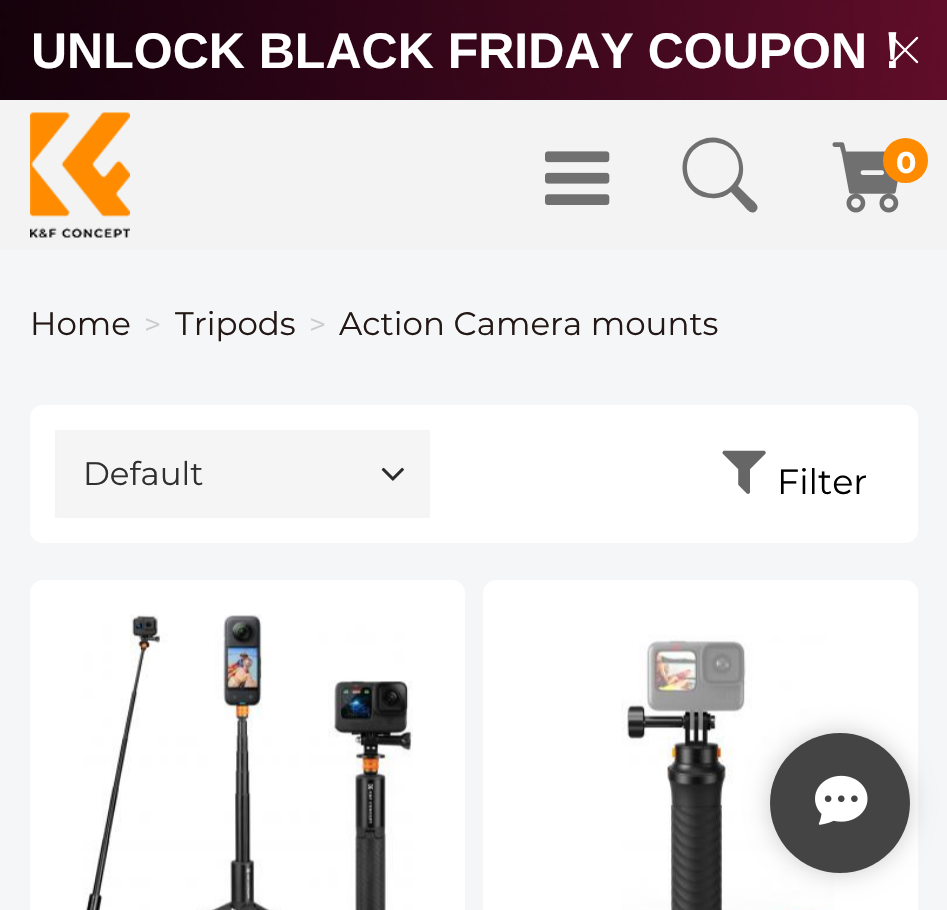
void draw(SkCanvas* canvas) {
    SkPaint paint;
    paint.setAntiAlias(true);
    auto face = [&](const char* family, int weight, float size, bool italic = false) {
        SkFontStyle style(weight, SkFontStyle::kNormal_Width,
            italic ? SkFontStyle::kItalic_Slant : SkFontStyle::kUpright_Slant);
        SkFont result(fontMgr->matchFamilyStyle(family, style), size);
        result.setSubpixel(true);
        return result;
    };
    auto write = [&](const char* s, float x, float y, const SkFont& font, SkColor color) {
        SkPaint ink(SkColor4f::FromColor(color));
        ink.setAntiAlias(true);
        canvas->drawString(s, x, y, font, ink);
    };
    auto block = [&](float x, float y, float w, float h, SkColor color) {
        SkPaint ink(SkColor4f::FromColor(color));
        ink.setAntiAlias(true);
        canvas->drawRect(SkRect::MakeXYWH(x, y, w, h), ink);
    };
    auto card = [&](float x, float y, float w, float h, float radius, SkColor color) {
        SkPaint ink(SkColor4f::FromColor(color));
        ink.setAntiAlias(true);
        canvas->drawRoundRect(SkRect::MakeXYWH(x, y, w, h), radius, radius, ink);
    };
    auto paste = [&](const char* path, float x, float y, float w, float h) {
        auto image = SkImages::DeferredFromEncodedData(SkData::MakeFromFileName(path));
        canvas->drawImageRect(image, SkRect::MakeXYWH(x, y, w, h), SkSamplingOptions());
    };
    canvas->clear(SkColorSetRGB(245, 246, 248));
    paste("pic1.png", 0, 0, 947, 100);
    auto kFont1 = face("Liberation Sans", 700, 50);
    write("UNLOCK BLACK FRIDAY COUPON", 31, 68, kFont1, SK_ColorWHITE);
    auto kFont2 = face("WenQuanYi Zen Hei", 700, 50);
    write("！", 867, 68, kFont2, SK_ColorWHITE);
    paste("pic2.png", 891, 36, 28, 28);
    block(0, 100, 947, 150, SkColorSetRGB(243, 243, 243));
    paste("pic3.png", 30, 112, 100, 126);
    paste("pic4.png", 545, 151, 65, 54);
    paint.setColor(SkColorSetRGB(112, 112, 112));
    canvas->drawPath(SkPathBuilder().moveTo(738, 186).cubicTo(748, 172, 743, 151, 728, 142).cubicTo(720, 137, 710, 136, 701, 140).cubicTo(671, 153, 680, 197, 711, 198).cubicTo(718, 199, 725, 197, 731, 192).lineTo(743, 205).cubicTo(746, 208, 751, 216, 756, 211).cubicTo(761, 206, 753, 201, 750, 198).close().moveTo(739, 168).cubicTo(739, 174, 737, 179, 733, 184).cubicTo(718, 203, 687, 192, 687, 168).cubicTo(687, 134, 739, 134, 739, 168).close().detach(), paint);
    paste("pic5.png", 832, 142, 67, 71);
    paint.setColor(SkColorSetRGB(255, 139, 0));
    canvas->drawCircle(905.5f, 160.5f, 21, paint);
    paint.setStyle(SkPaint::kStroke_Style);
    paint.setStrokeWidth(3);
    canvas->drawCircle(905.5f, 160.5f, 21, paint);
    auto kFont3 = face("Montserrat", 700, 30);
    write("0", 896, 173, kFont3, SK_ColorWHITE);
    auto kFont4 = face("Montserrat", 400, 32.5f);
    write("Home", 30, 335, kFont4, SkColorSetRGB(35, 24, 21));
    auto kFont5 = face("Montserrat", 400, 30);
    write(">", 144, 335, kFont5, SkColorSetRGB(204, 204, 204));
    write("Tripods", 175, 335, kFont4, SkColorSetRGB(35, 24, 21));
    write(">", 309, 335, kFont5, SkColorSetRGB(204, 204, 204));
    write("Action Camera mounts", 339, 335, kFont4, SkColorSetRGB(35, 24, 21));
    card(30, 405, 888, 138, 13, SK_ColorWHITE);
    block(58, 430, 372, 88, SkColorSetRGB(245, 245, 245));
    block(55, 430, 3, 88, SkColorSetRGB(243, 244, 245));
    write("Default", 83, 485, kFont4, SkColorSetRGB(48, 48, 48));
    paste("pic6.png", 381, 467, 23, 14);
    paste("pic7.png", 722, 450, 44, 44);
    auto kFont6 = face("Montserrat", 400, 35);
    write("Filter", 777, 494, kFont6, SK_ColorBLACK);
    card(30, 580, 435, 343, 13, SK_ColorWHITE);
    paste("pic8.png", 83, 614, 330, 296);
    card(483, 580, 435, 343, 13, SK_ColorWHITE);
    paste("pic9.png", 621, 635, 213, 275);
    canvas->save();
    canvas->clipPath(SkPathBuilder(SkPathFillType::kEvenOdd).moveTo(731, 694).lineTo(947, 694).lineTo(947, 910).lineTo(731, 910).close().moveTo(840, 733).cubicTo(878.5f, 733, 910, 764.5f, 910, 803).cubicTo(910, 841.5f, 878.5f, 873, 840, 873).cubicTo(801.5f, 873, 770, 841.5f, 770, 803).cubicTo(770, 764.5f, 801.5f, 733, 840, 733).close().detach(), true);
    paint.setStyle(SkPaint::kFill_Style);
    paint.setColor(SkColorSetARGB(51, 0, 0, 0));
    paint.setMaskFilter(SkMaskFilter::MakeBlur(kNormal_SkBlurStyle, 12.5f));
    canvas->drawRoundRect(SkRect::MakeXYWH(770, 733, 140, 140), 70, 70, paint);
    paint.setMaskFilter(nullptr);
    canvas->restore();
    paint.setColor(SkColorSetARGB(230, 48, 48, 48));
    canvas->drawCircle(840, 803, 70, paint);
    paste("pic10.png", 815, 775, 53, 50);
}
